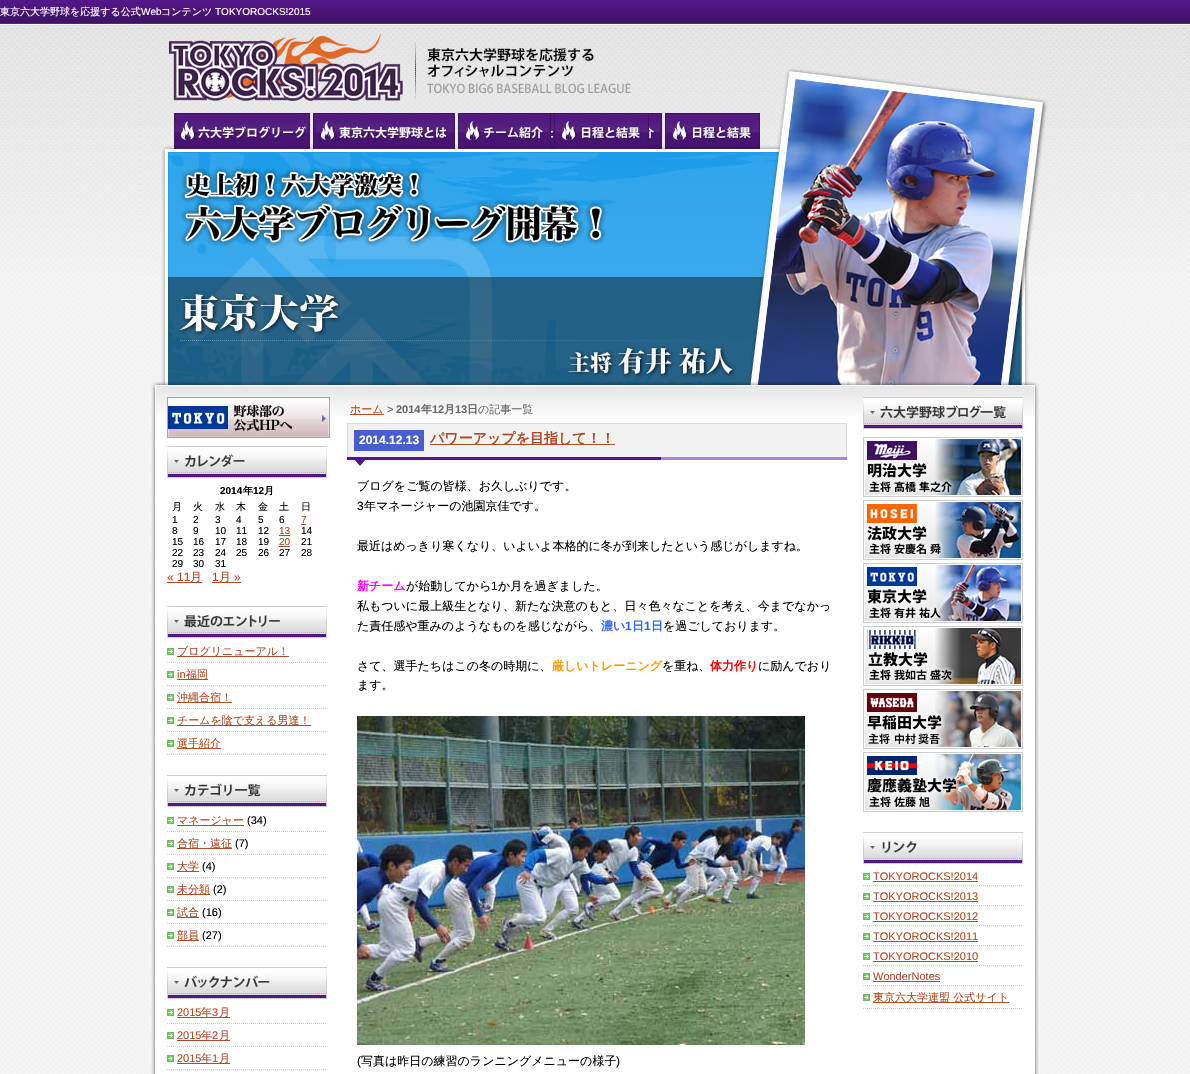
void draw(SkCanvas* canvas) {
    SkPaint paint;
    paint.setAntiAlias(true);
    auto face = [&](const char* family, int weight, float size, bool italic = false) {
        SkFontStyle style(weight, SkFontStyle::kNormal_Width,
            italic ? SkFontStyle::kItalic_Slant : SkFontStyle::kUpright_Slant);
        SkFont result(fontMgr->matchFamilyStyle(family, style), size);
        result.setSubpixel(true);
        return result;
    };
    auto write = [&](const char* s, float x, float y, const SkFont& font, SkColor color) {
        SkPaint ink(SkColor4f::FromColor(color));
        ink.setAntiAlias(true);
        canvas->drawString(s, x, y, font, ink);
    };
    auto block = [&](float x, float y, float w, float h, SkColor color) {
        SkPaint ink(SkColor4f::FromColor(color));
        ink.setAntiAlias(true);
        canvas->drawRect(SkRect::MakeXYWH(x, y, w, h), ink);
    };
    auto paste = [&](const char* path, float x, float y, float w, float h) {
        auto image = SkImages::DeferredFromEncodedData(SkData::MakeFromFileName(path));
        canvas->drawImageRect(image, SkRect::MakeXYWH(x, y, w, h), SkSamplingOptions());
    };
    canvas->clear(SK_ColorWHITE);
    paste("pic1.png", 0, 324, 1190, 750);
    paste("pic2.png", 0, 0, 1190, 24);
    auto kFont1 = face("WenQuanYi Zen Hei", 500, 10);
    write("東京六大学野球を応援する公式", 0, 15, kFont1, SK_ColorWHITE);
    auto kFont2 = face("Liberation Sans", 400, 10);
    write("Web", 141, 15, kFont2, SK_ColorWHITE);
    write("コンテンツ", 161, 15, kFont1, SK_ColorWHITE);
    write("TOKYOROCKS!2015", 215, 15, kFont2, SK_ColorWHITE);
    paste("pic3.png", 0, 24, 1190, 300);
    paste("pic4.png", 140, 385, 910, 689);
    paste("pic5.png", 140, 24, 910, 125);
    paste("pic6.png", 174, 113, 136, 36);
    paste("pic7.png", 313, 113, 142, 36);
    paste("pic8.png", 458, 113, 93, 36);
    paste("pic9.png", 554, 113, 95, 36);
    paste("pic10.png", 140, 149, 910, 236);
    paste("pic11.png", 152, 385, 886, 31);
    paste("pic12.png", 167, 397, 163, 41);
    paste("pic13.png", 167, 446, 160, 32);
    auto kFont3 = face("Liberation Sans", 700, 10);
    write("2014", 220, 494, kFont3, SK_ColorBLACK);
    auto kFont4 = face("WenQuanYi Zen Hei", 700, 10);
    write("年", 243, 494, kFont4, SK_ColorBLACK);
    write("12", 253, 494, kFont3, SK_ColorBLACK);
    write("月", 264, 494, kFont4, SK_ColorBLACK);
    write("月", 172, 510, kFont1, SK_ColorBLACK);
    write("火", 193, 510, kFont1, SK_ColorBLACK);
    write("水", 215, 510, kFont1, SK_ColorBLACK);
    write("木", 236, 510, kFont1, SK_ColorBLACK);
    write("金", 258, 510, kFont1, SK_ColorBLACK);
    write("土", 279, 510, kFont1, SK_ColorBLACK);
    write("日", 301, 510, kFont1, SK_ColorBLACK);
    write("1", 172, 523, kFont2, SK_ColorBLACK);
    write("2", 193, 523, kFont2, SK_ColorBLACK);
    write("3", 215, 523, kFont2, SK_ColorBLACK);
    write("4", 236, 523, kFont2, SK_ColorBLACK);
    write("5", 258, 523, kFont2, SK_ColorBLACK);
    write("6", 279, 523, kFont2, SK_ColorBLACK);
    write("7", 301, 523, kFont2, SkColorSetRGB(175, 74, 39));
    block(301, 524, 5, 1, SkColorSetRGB(175, 74, 39));
    write("8", 172, 534, kFont2, SK_ColorBLACK);
    write("9", 193, 534, kFont2, SK_ColorBLACK);
    write("10", 215, 534, kFont2, SK_ColorBLACK);
    write("11", 236, 534, kFont2, SK_ColorBLACK);
    write("12", 258, 534, kFont2, SK_ColorBLACK);
    write("13", 279, 534, kFont2, SkColorSetRGB(175, 74, 39));
    block(279, 535, 11, 1, SkColorSetRGB(175, 74, 39));
    write("14", 301, 534, kFont2, SK_ColorBLACK);
    write("15", 172, 545, kFont2, SK_ColorBLACK);
    write("16", 193, 545, kFont2, SK_ColorBLACK);
    write("17", 215, 545, kFont2, SK_ColorBLACK);
    write("18", 236, 545, kFont2, SK_ColorBLACK);
    write("19", 258, 545, kFont2, SK_ColorBLACK);
    write("20", 279, 545, kFont2, SkColorSetRGB(175, 74, 39));
    block(279, 546, 11, 1, SkColorSetRGB(175, 74, 39));
    write("21", 301, 545, kFont2, SK_ColorBLACK);
    write("22", 172, 556, kFont2, SK_ColorBLACK);
    write("23", 193, 556, kFont2, SK_ColorBLACK);
    write("24", 215, 556, kFont2, SK_ColorBLACK);
    write("25", 236, 556, kFont2, SK_ColorBLACK);
    write("26", 258, 556, kFont2, SK_ColorBLACK);
    write("27", 279, 556, kFont2, SK_ColorBLACK);
    write("28", 301, 556, kFont2, SK_ColorBLACK);
    write("29", 172, 567, kFont2, SK_ColorBLACK);
    write("30", 193, 567, kFont2, SK_ColorBLACK);
    write("31", 215, 567, kFont2, SK_ColorBLACK);
    auto kFont5 = face("Liberation Sans", 400, 12);
    write("« 11", 167, 581, kFont5, SkColorSetRGB(175, 74, 39));
    block(167, 582, 35, 1, SkColorSetRGB(175, 74, 39));
    auto kFont6 = face("WenQuanYi Zen Hei", 500, 12);
    write("月", 190, 581, kFont6, SkColorSetRGB(175, 74, 39));
    write("1", 212, 581, kFont5, SkColorSetRGB(175, 74, 39));
    block(212, 582, 29, 1, SkColorSetRGB(175, 74, 39));
    write("月", 219, 581, kFont6, SkColorSetRGB(175, 74, 39));
    write("»", 234, 581, kFont5, SkColorSetRGB(175, 74, 39));
    paste("pic14.png", 167, 606, 160, 32);
    paste("pic15.png", 167, 662, 159, 1);
    paste("pic16.png", 167, 648, 7, 7);
    block(177, 656, 112, 1, SkColorSetRGB(175, 74, 39));
    auto kFont7 = face("WenQuanYi Zen Hei", 500, 11);
    write("ブログリニューアル！", 177, 655, kFont7, SkColorSetRGB(175, 74, 39));
    paste("pic15.png", 167, 685, 159, 1);
    paste("pic16.png", 167, 671, 7, 7);
    auto kFont8 = face("Liberation Sans", 400, 11);
    write("in", 177, 678, kFont8, SkColorSetRGB(175, 74, 39));
    block(177, 679, 31, 1, SkColorSetRGB(175, 74, 39));
    write("福岡", 186, 678, kFont7, SkColorSetRGB(175, 74, 39));
    paste("pic15.png", 167, 708, 159, 1);
    paste("pic16.png", 167, 694, 7, 7);
    block(177, 702, 55, 1, SkColorSetRGB(175, 74, 39));
    write("沖縄合宿！", 177, 701, kFont7, SkColorSetRGB(175, 74, 39));
    paste("pic15.png", 167, 731, 159, 1);
    paste("pic16.png", 167, 717, 7, 7);
    block(177, 725, 134, 1, SkColorSetRGB(175, 74, 39));
    write("チームを陰で支える男達！", 177, 724, kFont7, SkColorSetRGB(175, 74, 39));
    paste("pic15.png", 167, 754, 159, 1);
    paste("pic16.png", 167, 740, 7, 7);
    block(177, 748, 44, 1, SkColorSetRGB(175, 74, 39));
    write("選手紹介", 177, 747, kFont7, SkColorSetRGB(175, 74, 39));
    paste("pic17.png", 167, 775, 160, 32);
    paste("pic15.png", 167, 831, 159, 1);
    paste("pic16.png", 167, 817, 7, 7);
    block(177, 825, 67, 1, SkColorSetRGB(175, 74, 39));
    write("マネージャー", 177, 824, kFont7, SkColorSetRGB(175, 74, 39));
    write("(34)", 247, 824, kFont8, SK_ColorBLACK);
    paste("pic15.png", 167, 854, 159, 1);
    paste("pic16.png", 167, 840, 7, 7);
    block(177, 848, 55, 1, SkColorSetRGB(175, 74, 39));
    write("合宿・遠征", 177, 847, kFont7, SkColorSetRGB(175, 74, 39));
    write("(7)", 235, 847, kFont8, SK_ColorBLACK);
    paste("pic15.png", 167, 877, 159, 1);
    paste("pic16.png", 167, 863, 7, 7);
    block(177, 871, 22, 1, SkColorSetRGB(175, 74, 39));
    write("大学", 177, 870, kFont7, SkColorSetRGB(175, 74, 39));
    write("(4)", 202, 870, kFont8, SK_ColorBLACK);
    paste("pic15.png", 167, 900, 159, 1);
    paste("pic16.png", 167, 886, 7, 7);
    block(177, 894, 33, 1, SkColorSetRGB(175, 74, 39));
    write("未分類", 177, 893, kFont7, SkColorSetRGB(175, 74, 39));
    write("(2)", 213, 893, kFont8, SK_ColorBLACK);
    paste("pic15.png", 167, 923, 159, 1);
    paste("pic16.png", 167, 909, 7, 7);
    block(177, 917, 22, 1, SkColorSetRGB(175, 74, 39));
    write("試合", 177, 916, kFont7, SkColorSetRGB(175, 74, 39));
    write("(16)", 202, 916, kFont8, SK_ColorBLACK);
    paste("pic15.png", 167, 946, 159, 1);
    paste("pic16.png", 167, 932, 7, 7);
    block(177, 940, 22, 1, SkColorSetRGB(175, 74, 39));
    write("部員", 177, 939, kFont7, SkColorSetRGB(175, 74, 39));
    write("(27)", 202, 939, kFont8, SK_ColorBLACK);
    paste("pic18.png", 167, 967, 160, 32);
    paste("pic15.png", 167, 1023, 159, 1);
    paste("pic16.png", 167, 1009, 7, 7);
    write("2015", 177, 1016, kFont8, SkColorSetRGB(175, 74, 39));
    block(177, 1017, 53, 1, SkColorSetRGB(175, 74, 39));
    write("年", 201, 1016, kFont7, SkColorSetRGB(175, 74, 39));
    write("3", 212, 1016, kFont8, SkColorSetRGB(175, 74, 39));
    write("月", 219, 1016, kFont7, SkColorSetRGB(175, 74, 39));
    paste("pic15.png", 167, 1046, 159, 1);
    paste("pic16.png", 167, 1032, 7, 7);
    write("2015", 177, 1039, kFont8, SkColorSetRGB(175, 74, 39));
    block(177, 1040, 53, 1, SkColorSetRGB(175, 74, 39));
    write("年", 201, 1039, kFont7, SkColorSetRGB(175, 74, 39));
    write("2", 212, 1039, kFont8, SkColorSetRGB(175, 74, 39));
    write("月", 219, 1039, kFont7, SkColorSetRGB(175, 74, 39));
    paste("pic15.png", 167, 1069, 159, 1);
    paste("pic16.png", 167, 1055, 7, 7);
    write("2015", 177, 1062, kFont8, SkColorSetRGB(175, 74, 39));
    block(177, 1063, 53, 1, SkColorSetRGB(175, 74, 39));
    write("年", 201, 1062, kFont7, SkColorSetRGB(175, 74, 39));
    write("1", 212, 1062, kFont8, SkColorSetRGB(175, 74, 39));
    write("月", 219, 1062, kFont7, SkColorSetRGB(175, 74, 39));
    block(350, 414, 34, 1, SkColorSetRGB(175, 74, 39));
    write("ホーム", 350, 413, kFont7, SkColorSetRGB(175, 74, 39));
    write(">", 387, 413, kFont8, SkColorSetRGB(102, 102, 102));
    auto kFont9 = face("Liberation Sans", 700, 11);
    write("2014", 396, 413, kFont9, SkColorSetRGB(102, 102, 102));
    auto kFont10 = face("WenQuanYi Zen Hei", 700, 11);
    write("年", 421, 413, kFont10, SkColorSetRGB(102, 102, 102));
    write("12", 432, 413, kFont9, SkColorSetRGB(102, 102, 102));
    write("月", 444, 413, kFont10, SkColorSetRGB(102, 102, 102));
    write("13", 455, 413, kFont9, SkColorSetRGB(102, 102, 102));
    write("日", 467, 413, kFont10, SkColorSetRGB(102, 102, 102));
    write("の記事一覧", 478, 413, kFont7, SkColorSetRGB(102, 102, 102));
    block(348, 424, 498, 33, SkColorSetRGB(242, 242, 242));
    block(347, 423, 500, 1, SkColorSetRGB(219, 219, 219));
    block(846, 423, 1, 34, SkColorSetRGB(219, 219, 219));
    block(347, 423, 1, 34, SkColorSetRGB(219, 219, 219));
    block(354, 430, 70, 21, SkColorSetRGB(73, 94, 206));
    auto kFont11 = face("Liberation Sans", 700, 12);
    write("2014.12.13", 359, 444, kFont11, SK_ColorWHITE);
    block(430, 444, 185, 1, SkColorSetRGB(175, 74, 39));
    auto kFont12 = face("WenQuanYi Zen Hei", 700, 14);
    write("パワーアップを目指して！！", 430, 443, kFont12, SkColorSetRGB(175, 74, 39));
    paste("pic19.png", 347, 457, 500, 9);
    write("ブログをご覧の皆様、お久しぶりです。", 357, 490, kFont6, SK_ColorBLACK);
    write("3", 357, 510, kFont5, SK_ColorBLACK);
    write("年マネージャーの池園京佳です。", 364, 510, kFont6, SK_ColorBLACK);
    write("最近はめっきり寒くなり、いよいよ本格的に冬が到来したという感じがしますね。", 357, 550, kFont6, SK_ColorBLACK);
    auto kFont13 = face("WenQuanYi Zen Hei", 700, 12);
    write("新チーム", 357, 590, kFont13, SkColorSetRGB(255, 0, 255));
    write("が始動してから", 406, 590, kFont6, SK_ColorBLACK);
    write("1", 491, 590, kFont5, SK_ColorBLACK);
    write("か月を過ぎました。", 498, 590, kFont6, SK_ColorBLACK);
    write("私もついに最上級生となり、新たな決意のもと、日々色々なことを考え、今までなかっ", 357, 610, kFont6, SK_ColorBLACK);
    write("た責任感や重みのようなものを感じながら、", 357, 630, kFont6, SK_ColorBLACK);
    write("濃い", 601, 630, kFont13, SkColorSetRGB(51, 102, 255));
    write("1", 625, 630, kFont11, SkColorSetRGB(51, 102, 255));
    write("日", 632, 630, kFont13, SkColorSetRGB(51, 102, 255));
    write("1", 644, 630, kFont11, SkColorSetRGB(51, 102, 255));
    write("日", 651, 630, kFont13, SkColorSetRGB(51, 102, 255));
    write("を過ごしております。", 663, 630, kFont6, SK_ColorBLACK);
    write("さて、選手たちはこの冬の時期に、", 357, 670, kFont6, SK_ColorBLACK);
    write("厳しいトレーニング", 552, 670, kFont13, SkColorSetRGB(255, 153, 0));
    write("を重ね、", 662, 670, kFont6, SK_ColorBLACK);
    write("体力作り", 710, 670, kFont13, SkColorSetRGB(255, 0, 0));
    write("に励んでおり", 758, 670, kFont6, SK_ColorBLACK);
    write("ます。", 357, 689, kFont6, SK_ColorBLACK);
    paste("pic20.png", 357, 716, 448, 329);
    write("(", 357, 1065, kFont5, SK_ColorBLACK);
    write("写真は昨日の練習のランニングメニューの様子", 361, 1065, kFont6, SK_ColorBLACK);
    write(")", 616, 1065, kFont5, SK_ColorBLACK);
    paste("pic21.png", 863, 397, 160, 32);
    paste("pic22.png", 863, 437, 160, 60);
    paste("pic23.png", 863, 500, 160, 60);
    paste("pic24.png", 863, 563, 160, 60);
    paste("pic25.png", 863, 626, 160, 60);
    paste("pic26.png", 863, 689, 160, 60);
    paste("pic27.png", 863, 752, 160, 60);
    paste("pic28.png", 863, 832, 160, 32);
    paste("pic15.png", 863, 885, 159, 1);
    paste("pic16.png", 863, 873, 7, 7);
    write("TOKYOROCKS!2014", 873, 880, kFont8, SkColorSetRGB(175, 74, 39));
    block(873, 881, 105, 1, SkColorSetRGB(175, 74, 39));
    paste("pic15.png", 863, 905, 159, 1);
    paste("pic16.png", 863, 893, 7, 7);
    write("TOKYOROCKS!2013", 873, 900, kFont8, SkColorSetRGB(175, 74, 39));
    block(873, 901, 105, 1, SkColorSetRGB(175, 74, 39));
    paste("pic15.png", 863, 925, 159, 1);
    paste("pic16.png", 863, 913, 7, 7);
    write("TOKYOROCKS!2012", 873, 920, kFont8, SkColorSetRGB(175, 74, 39));
    block(873, 921, 105, 1, SkColorSetRGB(175, 74, 39));
    paste("pic15.png", 863, 945, 159, 1);
    paste("pic16.png", 863, 933, 7, 7);
    write("TOKYOROCKS!2011", 873, 940, kFont8, SkColorSetRGB(175, 74, 39));
    block(873, 941, 105, 1, SkColorSetRGB(175, 74, 39));
    paste("pic15.png", 863, 965, 159, 1);
    paste("pic16.png", 863, 953, 7, 7);
    write("TOKYOROCKS!2010", 873, 960, kFont8, SkColorSetRGB(175, 74, 39));
    block(873, 961, 105, 1, SkColorSetRGB(175, 74, 39));
    paste("pic15.png", 863, 985, 159, 1);
    paste("pic16.png", 863, 973, 7, 7);
    write("WonderNotes", 873, 980, kFont8, SkColorSetRGB(175, 74, 39));
    block(873, 981, 67, 1, SkColorSetRGB(175, 74, 39));
    paste("pic15.png", 863, 1008, 159, 1);
    paste("pic16.png", 863, 994, 7, 7);
    block(873, 1002, 136, 1, SkColorSetRGB(175, 74, 39));
    write("東京六大学連盟 公式サイト", 873, 1001, kFont7, SkColorSetRGB(175, 74, 39));
}
